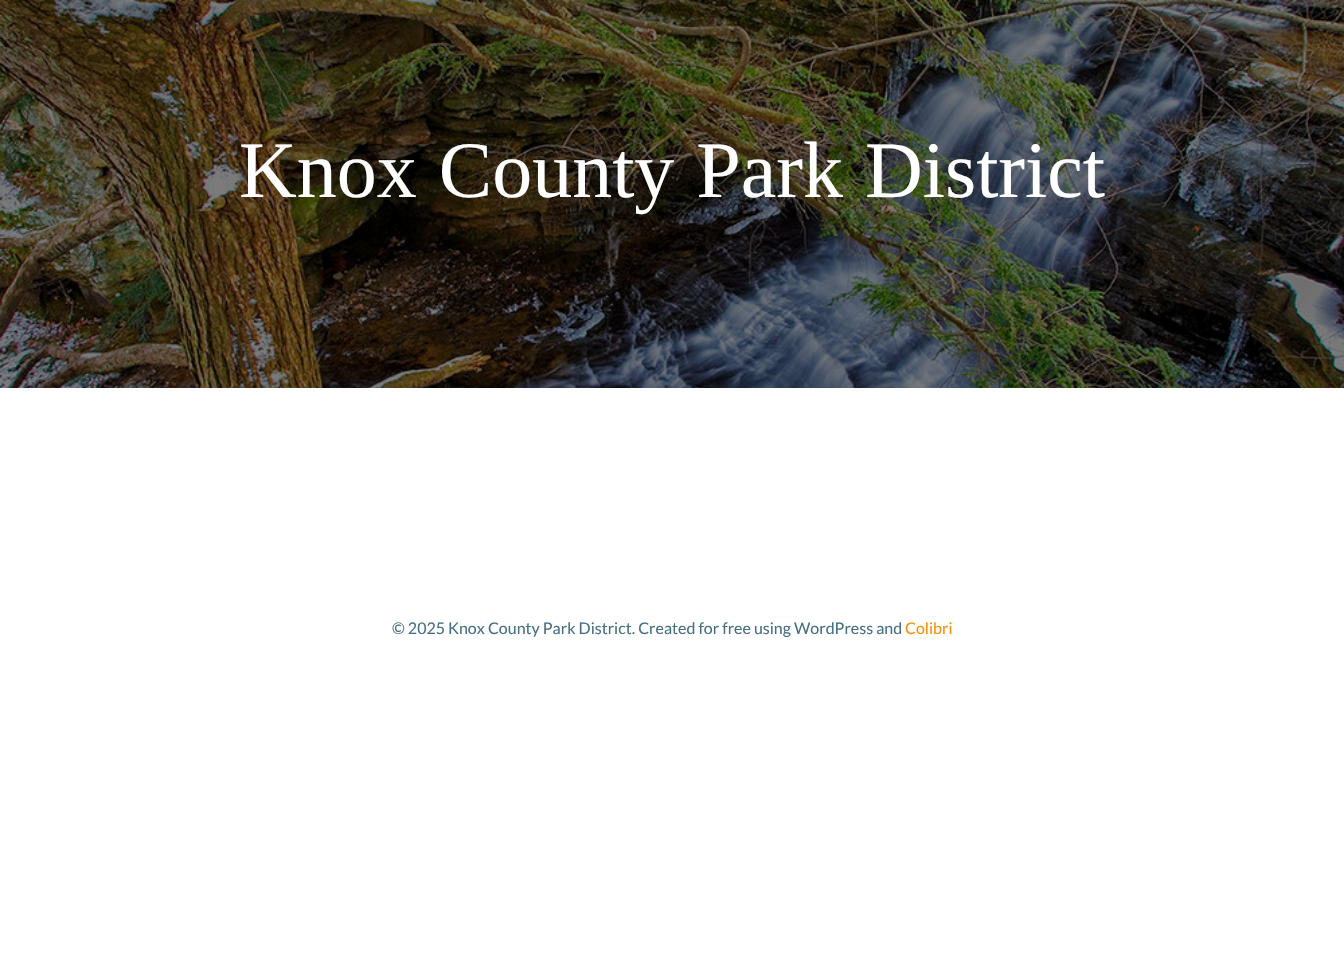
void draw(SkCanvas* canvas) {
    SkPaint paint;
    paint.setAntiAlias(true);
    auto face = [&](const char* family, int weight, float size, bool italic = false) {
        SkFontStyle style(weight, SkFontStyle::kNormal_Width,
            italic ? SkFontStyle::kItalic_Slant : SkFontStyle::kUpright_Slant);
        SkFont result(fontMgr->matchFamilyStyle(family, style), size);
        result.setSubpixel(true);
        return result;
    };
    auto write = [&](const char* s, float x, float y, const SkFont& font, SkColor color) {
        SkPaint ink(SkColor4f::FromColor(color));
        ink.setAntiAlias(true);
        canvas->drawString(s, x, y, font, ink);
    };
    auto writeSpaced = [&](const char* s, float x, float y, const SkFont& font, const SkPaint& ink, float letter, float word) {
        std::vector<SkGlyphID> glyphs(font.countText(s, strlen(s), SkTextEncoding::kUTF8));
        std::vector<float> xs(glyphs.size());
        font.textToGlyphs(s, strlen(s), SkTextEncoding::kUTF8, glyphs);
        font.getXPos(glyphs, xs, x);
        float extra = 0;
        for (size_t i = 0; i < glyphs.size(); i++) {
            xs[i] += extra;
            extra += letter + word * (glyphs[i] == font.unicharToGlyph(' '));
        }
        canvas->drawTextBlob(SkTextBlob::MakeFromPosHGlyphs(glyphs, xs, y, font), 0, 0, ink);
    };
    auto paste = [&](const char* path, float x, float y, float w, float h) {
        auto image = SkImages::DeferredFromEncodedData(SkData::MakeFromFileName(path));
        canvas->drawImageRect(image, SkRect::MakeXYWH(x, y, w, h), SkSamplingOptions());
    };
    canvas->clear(SK_ColorWHITE);
    paste("pic1.png", 0, 0, 1344, 388);
    auto kFont1 = face("Liberation Serif", 400, 80);
    paint.setColor(SK_ColorWHITE);
    writeSpaced("Knox County Park District", 239, 197, kFont1, paint, 0, 2);
    auto kFont2 = face("Lato", 400, 16);
    write("© 2025 Knox County Park District. Created for free using WordPress and", 392, 634, kFont2, SkColorSetRGB(70, 112, 127));
    write("Colibri", 905, 634, kFont2, SkColorSetRGB(247, 144, 7));
}
